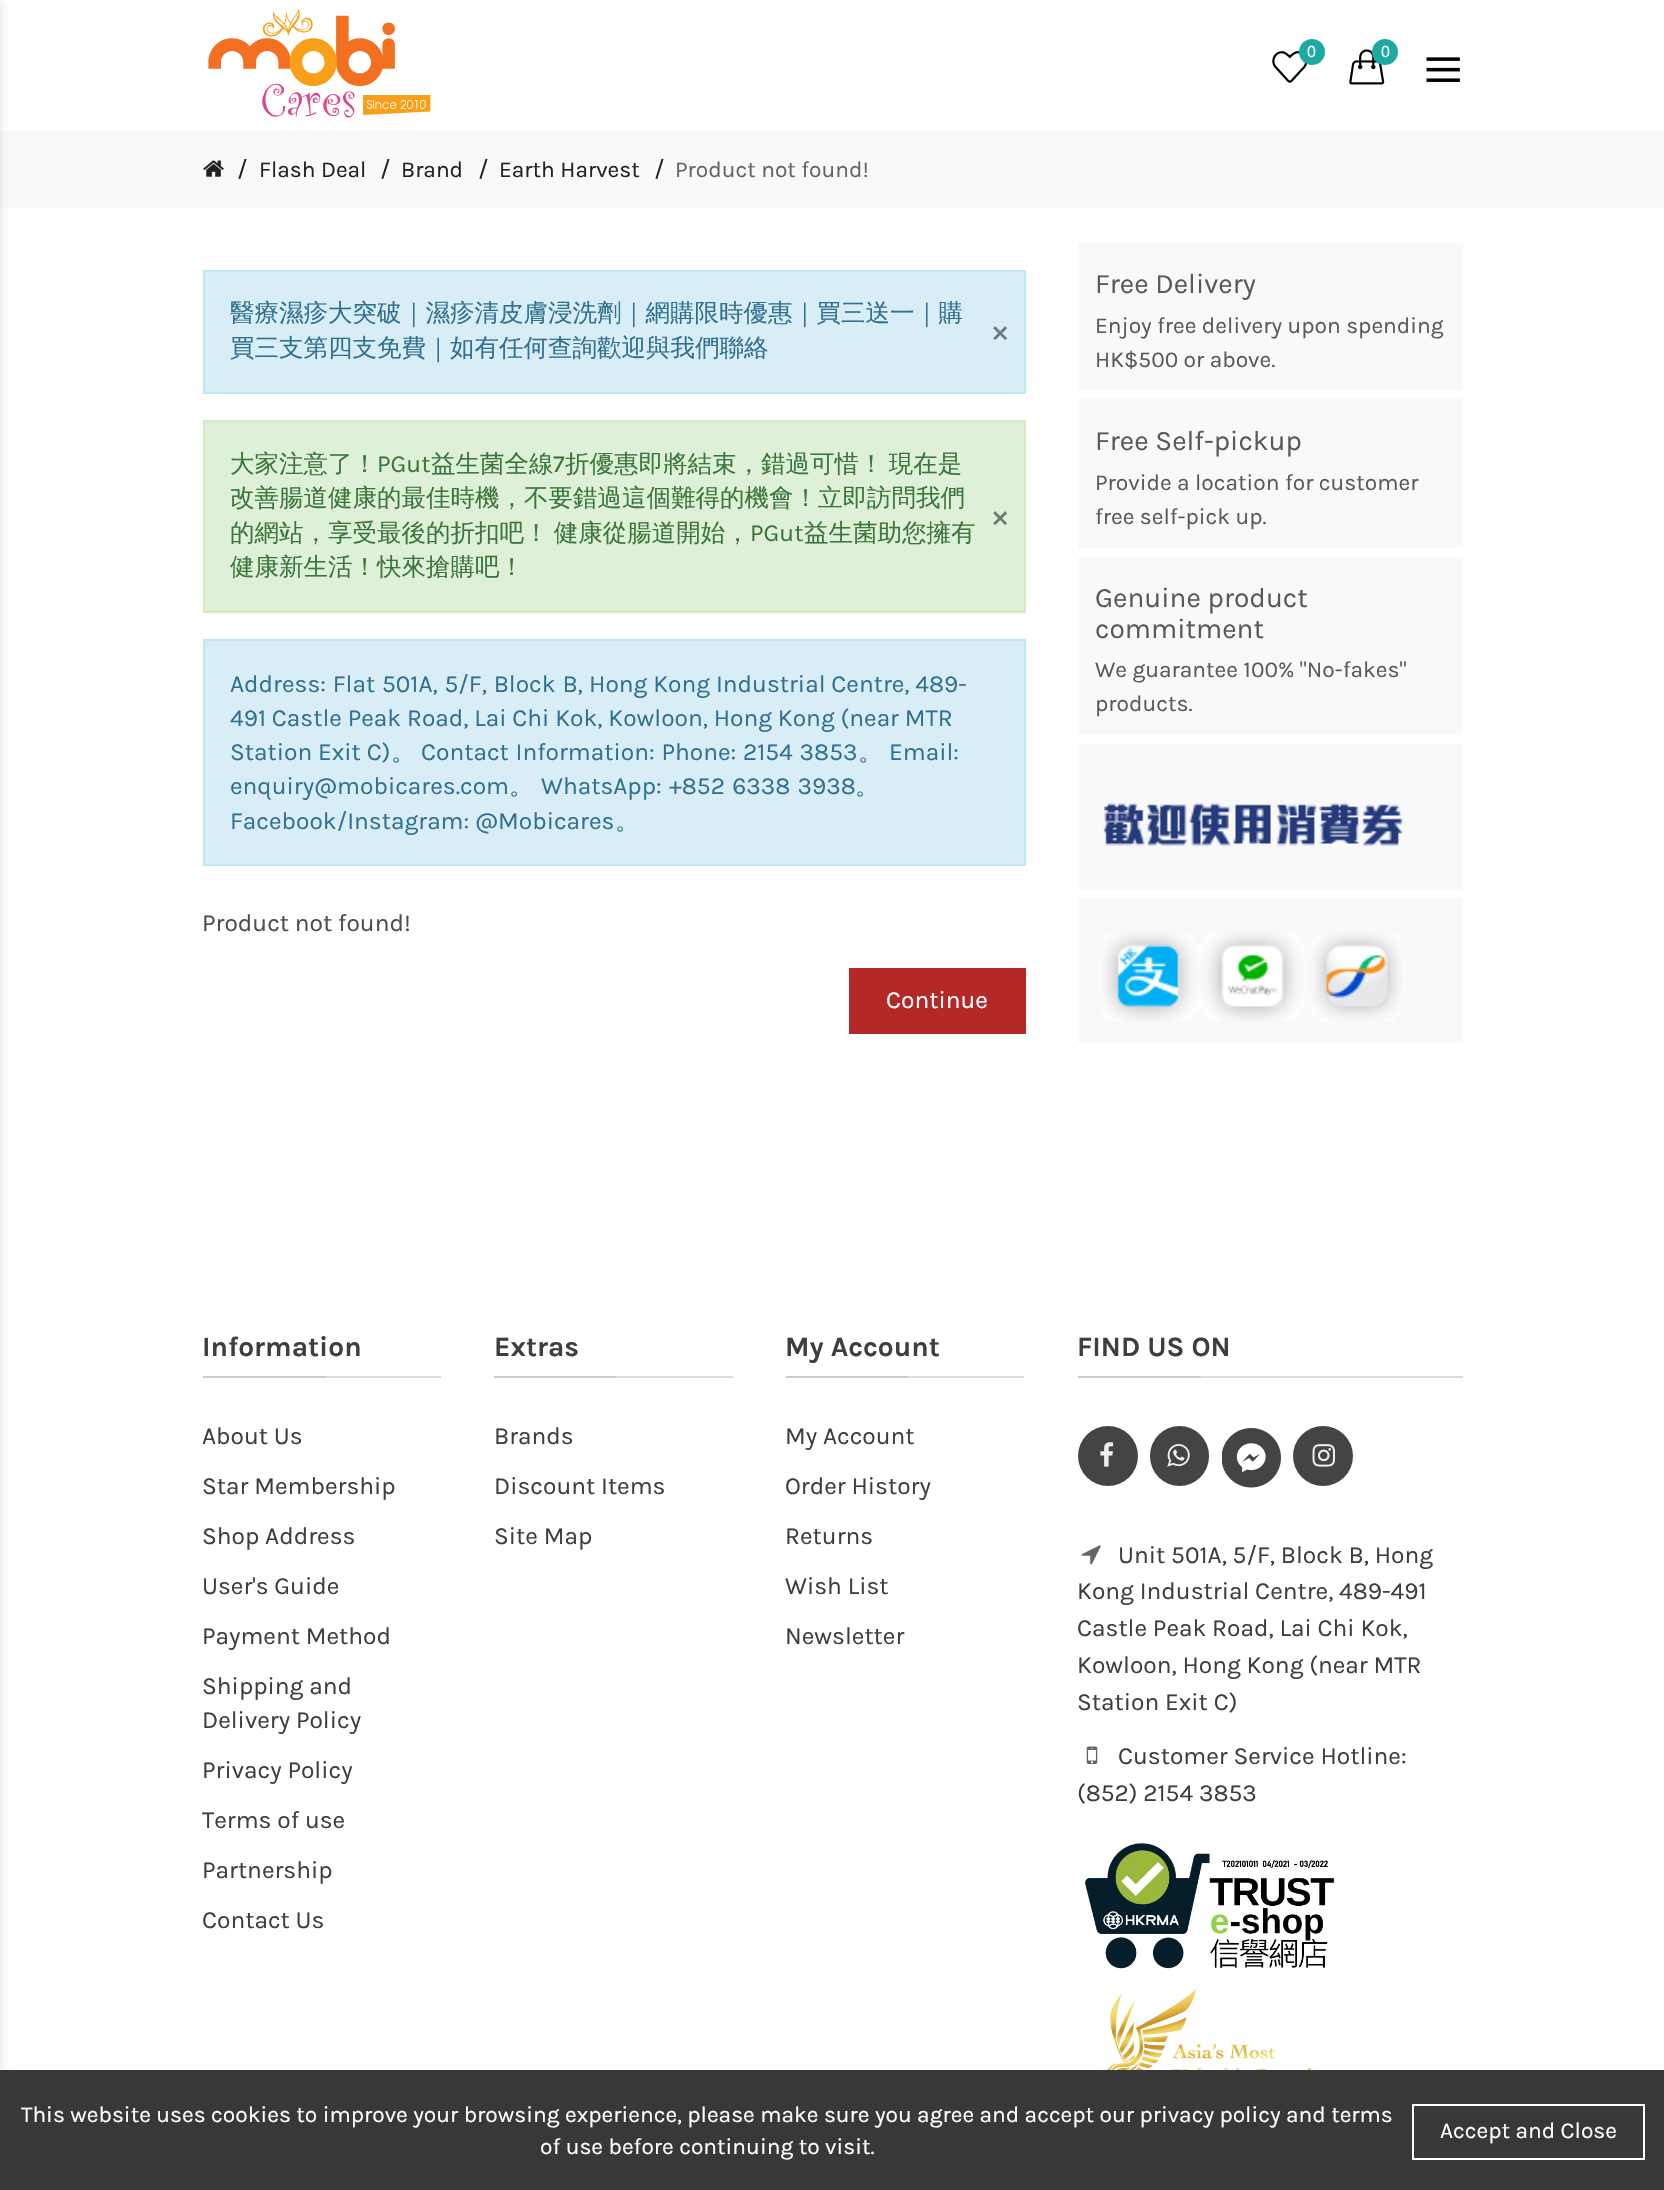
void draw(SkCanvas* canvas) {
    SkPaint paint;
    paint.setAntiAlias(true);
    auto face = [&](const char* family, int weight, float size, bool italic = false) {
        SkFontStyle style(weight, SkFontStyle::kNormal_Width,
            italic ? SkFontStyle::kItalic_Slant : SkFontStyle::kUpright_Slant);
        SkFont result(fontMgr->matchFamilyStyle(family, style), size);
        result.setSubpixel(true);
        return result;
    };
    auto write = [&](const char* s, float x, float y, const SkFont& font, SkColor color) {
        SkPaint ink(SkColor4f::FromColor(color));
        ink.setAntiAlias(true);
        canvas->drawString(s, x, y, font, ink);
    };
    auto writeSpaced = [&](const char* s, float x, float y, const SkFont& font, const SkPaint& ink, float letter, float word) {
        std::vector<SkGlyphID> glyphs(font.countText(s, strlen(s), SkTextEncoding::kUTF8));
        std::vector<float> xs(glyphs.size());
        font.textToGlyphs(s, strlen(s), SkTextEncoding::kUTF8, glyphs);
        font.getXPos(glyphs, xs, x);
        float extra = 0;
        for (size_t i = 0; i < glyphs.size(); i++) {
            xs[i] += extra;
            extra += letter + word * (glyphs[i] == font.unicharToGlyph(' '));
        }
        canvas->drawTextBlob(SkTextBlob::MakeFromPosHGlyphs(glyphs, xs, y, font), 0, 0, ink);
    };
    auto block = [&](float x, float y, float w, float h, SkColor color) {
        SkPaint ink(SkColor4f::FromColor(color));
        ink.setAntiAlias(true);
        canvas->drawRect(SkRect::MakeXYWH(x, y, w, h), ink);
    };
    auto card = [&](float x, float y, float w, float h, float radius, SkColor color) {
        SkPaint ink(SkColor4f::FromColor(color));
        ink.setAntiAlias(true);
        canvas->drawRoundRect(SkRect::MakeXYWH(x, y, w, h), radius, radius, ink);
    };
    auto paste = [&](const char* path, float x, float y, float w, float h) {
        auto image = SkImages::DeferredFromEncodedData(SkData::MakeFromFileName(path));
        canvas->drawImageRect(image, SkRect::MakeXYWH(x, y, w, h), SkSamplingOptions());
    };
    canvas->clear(SK_ColorWHITE);
    block(0, 131, 1664, 77, SkColorSetRGB(249, 249, 249));
    paint.setColor(SkColorSetARGB(33, 0, 0, 0));
    paint.setMaskFilter(SkMaskFilter::MakeBlur(kNormal_SkBlurStyle, 4.5f));
    canvas->drawRect(SkRect::MakeXYWH(-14, 2, 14, 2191), paint);
    paint.setMaskFilter(nullptr);
    paste("pic1.png", 208, 8, 223, 110);
    paste("pic2.png", 1272, 51, 35, 32);
    paint.setColor(SkColorSetRGB(29, 170, 163));
    canvas->drawCircle(1312, 52, 13, paint);
    auto kFont1 = face("Liberation Sans", 400, 16);
    write("0", 1307, 57, kFont1, SK_ColorWHITE);
    paste("pic3.png", 1349, 49, 36, 36);
    canvas->drawCircle(1385, 52, 13, paint);
    write("0", 1381, 57, kFont1, SK_ColorWHITE);
    paste("pic4.png", 1426, 57, 34, 25);
    paste("pic5.png", 203, 160, 21, 17);
    auto kFont2 = face("Karla", 400, 24.5f);
    write("/", 237, 177, kFont2, SkColorSetRGB(34, 34, 34));
    auto kFont3 = face("Karla", 400, 22.75f);
    write("Flash Deal", 259, 177, kFont3, SkColorSetRGB(34, 34, 34));
    write("/", 380, 177, kFont2, SkColorSetRGB(34, 34, 34));
    write("Brand", 401, 177, kFont3, SkColorSetRGB(34, 34, 34));
    write("/", 478, 177, kFont2, SkColorSetRGB(34, 34, 34));
    write("Earth Harvest", 499, 177, kFont3, SkColorSetRGB(34, 34, 34));
    write("/", 654, 177, kFont2, SkColorSetRGB(34, 34, 34));
    write("Product not found!", 675, 177, kFont3, SkColorSetRGB(99, 99, 99));
    paint.setColor(SkColorSetRGB(217, 237, 247));
    canvas->drawRect(SkRect::MakeXYWH(204, 271, 821, 122), paint);
    paint.setStyle(SkPaint::kStroke_Style);
    paint.setStrokeWidth(2);
    paint.setColor(SkColorSetRGB(188, 232, 241));
    canvas->drawRect(SkRect::MakeXYWH(204, 271, 821, 122), paint);
    auto kFont4 = face("WenQuanYi Zen Hei", 500, 24.5f);
    write("醫療濕疹大突破｜濕疹清皮膚浸洗劑｜網購限時優惠｜買三送一｜購", 230, 321, kFont4, SkColorSetRGB(49, 112, 143));
    auto kFont5 = face("Karla", 400, 35);
    write("×", 991, 342, kFont5, SkColorSetRGB(109, 119, 124));
    write("買三支第四支免費｜如有任何查詢歡迎與我們聯絡", 230, 356, kFont4, SkColorSetRGB(49, 112, 143));
    paint.setStyle(SkPaint::kFill_Style);
    paint.setColor(SkColorSetRGB(223, 240, 216));
    canvas->drawRect(SkRect::MakeXYWH(204, 421, 821, 191), paint);
    paint.setStyle(SkPaint::kStroke_Style);
    paint.setColor(SkColorSetRGB(214, 233, 198));
    canvas->drawRect(SkRect::MakeXYWH(204, 421, 821, 191), paint);
    write("大家注意了！", 230, 472, kFont4, SkColorSetRGB(60, 118, 61));
    write("PGut", 377, 472, kFont2, SkColorSetRGB(60, 118, 61));
    write("益生菌全線", 431, 472, kFont4, SkColorSetRGB(60, 118, 61));
    write("7", 553, 472, kFont2, SkColorSetRGB(60, 118, 61));
    paint.setStyle(SkPaint::kFill_Style);
    paint.setColor(SkColorSetRGB(60, 118, 61));
    writeSpaced("折優惠即將結束，錯過可惜！ 現在是", 565, 472, kFont4, paint, 0, -2);
    write("改善腸道健康的最佳時機，不要錯過這個難得的機會！立即訪問我們", 230, 506, kFont4, SkColorSetRGB(60, 118, 61));
    write("×", 991, 527, kFont5, SkColorSetRGB(112, 120, 108));
    writeSpaced("的網站，享受最後的折扣吧！ 健康從腸道開始，", 230, 541, kFont4, paint, 0, -2);
    write("PGut", 750, 541, kFont2, SkColorSetRGB(60, 118, 61));
    write("益生菌助您擁有", 804, 541, kFont4, SkColorSetRGB(60, 118, 61));
    write("健康新生活！快來搶購吧！", 230, 575, kFont4, SkColorSetRGB(60, 118, 61));
    paint.setColor(SkColorSetRGB(217, 237, 247));
    canvas->drawRect(SkRect::MakeXYWH(204, 640, 821, 225), paint);
    paint.setStyle(SkPaint::kStroke_Style);
    paint.setColor(SkColorSetRGB(188, 232, 241));
    canvas->drawRect(SkRect::MakeXYWH(204, 640, 821, 225), paint);
    paint.setStyle(SkPaint::kFill_Style);
    paint.setColor(SkColorSetRGB(49, 112, 143));
    writeSpaced("Address: Flat 501A, 5/F, Block B,", 230, 692, kFont2, paint, 0, 1);
    write("Hong Kong Industrial Centre, 489-", 589, 692, kFont2, SkColorSetRGB(49, 112, 143));
    write("491 Castle Peak Road, Lai Chi Kok, Kowloon, Hong Kong (near MTR", 230, 726, kFont2, SkColorSetRGB(49, 112, 143));
    write("Station Exit C)", 230, 760, kFont2, SkColorSetRGB(49, 112, 143));
    write("。", 391, 760, kFont4, SkColorSetRGB(49, 112, 143));
    writeSpaced("Contact Information: Phone: 2154 3853", 421, 760, kFont2, paint, 0, 1);
    write("。", 858, 760, kFont4, SkColorSetRGB(49, 112, 143));
    write("Email:", 889, 760, kFont2, SkColorSetRGB(49, 112, 143));
    write("enquiry@mobicares.com", 230, 794, kFont2, SkColorSetRGB(49, 112, 143));
    write("。", 509, 794, kFont4, SkColorSetRGB(49, 112, 143));
    writeSpaced("WhatsApp: +852 6338 3938", 541, 794, kFont2, paint, 0, 1.5f);
    write("。", 855, 794, kFont4, SkColorSetRGB(49, 112, 143));
    write("Facebook/Instagram: @Mobicares", 230, 829, kFont2, SkColorSetRGB(49, 112, 143));
    write("。", 615, 829, kFont4, SkColorSetRGB(49, 112, 143));
    write("Product not found!", 202, 931, kFont2, SkColorSetRGB(76, 76, 76));
    block(849, 968, 177, 66, SkColorSetRGB(180, 40, 40));
    write("Continue", 886, 1008, kFont2, SK_ColorWHITE);
    block(1078, 243, 385, 147, SkColorSetRGB(249, 249, 251));
    auto kFont6 = face("Karla", 400, 28);
    write("Free Delivery", 1095, 293, kFont6, SkColorSetRGB(89, 89, 89));
    write("Enjoy free delivery upon spending", 1095, 333, kFont3, SkColorSetRGB(89, 89, 89));
    write("HK$500 or above.", 1095, 367, kFont3, SkColorSetRGB(89, 89, 89));
    block(1078, 399, 385, 149, SkColorSetRGB(249, 249, 251));
    write("Free Self-pickup", 1095, 450, kFont6, SkColorSetRGB(89, 89, 89));
    write("Provide a location for customer", 1095, 490, kFont3, SkColorSetRGB(89, 89, 89));
    write("free self-pick up.", 1095, 524, kFont3, SkColorSetRGB(89, 89, 89));
    block(1078, 557, 385, 178, SkColorSetRGB(249, 249, 251));
    write("Genuine product", 1095, 607, kFont6, SkColorSetRGB(89, 89, 89));
    write("commitment", 1095, 638, kFont6, SkColorSetRGB(89, 89, 89));
    write("We guarantee 100% \"No-fakes\"", 1095, 677, kFont3, SkColorSetRGB(89, 89, 89));
    write("products.", 1095, 711, kFont3, SkColorSetRGB(89, 89, 89));
    block(1078, 744, 385, 145, SkColorSetRGB(249, 249, 251));
    paste("pic6.png", 1103, 803, 300, 43);
    block(1078, 898, 385, 145, SkColorSetRGB(249, 249, 251));
    paste("pic7.png", 1102, 931, 300, 91);
    block(326, 1376, 115, 2, SkColorSetRGB(221, 221, 221));
    auto kFont7 = face("Karla", 700, 28);
    write("Information", 202, 1356, kFont7, SkColorSetRGB(62, 62, 62));
    block(203, 1376, 123, 2, SkColorSetRGB(204, 204, 204));
    write("About Us", 202, 1444, kFont2, SkColorSetRGB(62, 62, 62));
    write("Star Membership", 202, 1494, kFont2, SkColorSetRGB(62, 62, 62));
    write("Shop Address", 202, 1544, kFont2, SkColorSetRGB(62, 62, 62));
    write("User's Guide", 202, 1594, kFont2, SkColorSetRGB(62, 62, 62));
    write("Payment Method", 202, 1644, kFont2, SkColorSetRGB(62, 62, 62));
    write("Shipping and", 202, 1694, kFont2, SkColorSetRGB(62, 62, 62));
    write("Delivery Policy", 202, 1728, kFont2, SkColorSetRGB(62, 62, 62));
    write("Privacy Policy", 202, 1778, kFont2, SkColorSetRGB(62, 62, 62));
    write("Terms of use", 202, 1828, kFont2, SkColorSetRGB(62, 62, 62));
    write("Partnership", 202, 1878, kFont2, SkColorSetRGB(62, 62, 62));
    write("Contact Us", 202, 1928, kFont2, SkColorSetRGB(62, 62, 62));
    block(616, 1376, 117, 2, SkColorSetRGB(221, 221, 221));
    write("Extras", 494, 1356, kFont7, SkColorSetRGB(62, 62, 62));
    block(494, 1376, 122, 2, SkColorSetRGB(204, 204, 204));
    write("Brands", 494, 1444, kFont2, SkColorSetRGB(62, 62, 62));
    write("Discount Items", 494, 1494, kFont2, SkColorSetRGB(62, 62, 62));
    write("Site Map", 494, 1544, kFont2, SkColorSetRGB(62, 62, 62));
    block(908, 1376, 116, 2, SkColorSetRGB(221, 221, 221));
    write("My Account", 785, 1356, kFont7, SkColorSetRGB(62, 62, 62));
    block(786, 1376, 122, 2, SkColorSetRGB(204, 204, 204));
    write("My Account", 785, 1444, kFont2, SkColorSetRGB(62, 62, 62));
    write("Order History", 785, 1494, kFont2, SkColorSetRGB(62, 62, 62));
    write("Returns", 785, 1544, kFont2, SkColorSetRGB(62, 62, 62));
    write("Wish List", 785, 1594, kFont2, SkColorSetRGB(62, 62, 62));
    write("Newsletter", 785, 1644, kFont2, SkColorSetRGB(62, 62, 62));
    block(1201, 1376, 262, 2, SkColorSetRGB(221, 221, 221));
    write("FIND US ON", 1077, 1356, kFont7, SkColorSetRGB(62, 62, 62));
    block(1078, 1376, 123, 2, SkColorSetRGB(204, 204, 204));
    paint.setColor(SkColorSetRGB(68, 68, 68));
    canvas->drawCircle(1108, 1456, 30, paint);
    paste("pic8.png", 1100, 1442, 14, 25);
    card(1150, 1426, 59, 60, 29.5f, SkColorSetRGB(68, 68, 68));
    paste("pic9.png", 1167, 1444, 23, 23);
    paste("pic10.png", 1222, 1428, 59, 60);
    canvas->drawCircle(1323, 1456, 30, paint);
    paste("pic11.png", 1312, 1444, 23, 23);
    paste("pic12.png", 1081, 1545, 20, 20);
    write("Unit 501A, 5/F, Block B, Hong", 1118, 1563, kFont2, SkColorSetRGB(62, 62, 62));
    write("Kong Industrial Centre, 489-491", 1077, 1599, kFont2, SkColorSetRGB(62, 62, 62));
    write("Castle Peak Road, Lai Chi Kok,", 1077, 1636, kFont2, SkColorSetRGB(62, 62, 62));
    write("Kowloon, Hong Kong (near MTR", 1077, 1673, kFont2, SkColorSetRGB(62, 62, 62));
    write("Station Exit C)", 1077, 1710, kFont2, SkColorSetRGB(62, 62, 62));
    paste("pic13.png", 1086, 1746, 12, 18);
    write("Customer Service Hotline:", 1118, 1764, kFont2, SkColorSetRGB(62, 62, 62));
    write("(852) 2154 3853", 1077, 1801, kFont2, SkColorSetRGB(62, 62, 62));
    paste("pic14.png", 1085, 1843, 249, 126);
    paste("pic15.png", 1103, 1988, 210, 82);
    block(0, 2070, 1664, 120, SkColorSetRGB(56, 56, 56));
    write("This website uses cookies to improve your browsing experience, please make sure you agree and accept our privacy policy and terms", 21, 2122, kFont3, SK_ColorWHITE);
    write("of use before continuing to visit.", 540, 2154, kFont3, SK_ColorWHITE);
    paint.setStyle(SkPaint::kStroke_Style);
    paint.setColor(SK_ColorWHITE);
    canvas->drawRect(SkRect::MakeXYWH(1413, 2105, 231, 54), paint);
    write("Accept and Close", 1440, 2138, kFont3, SK_ColorWHITE);
}
